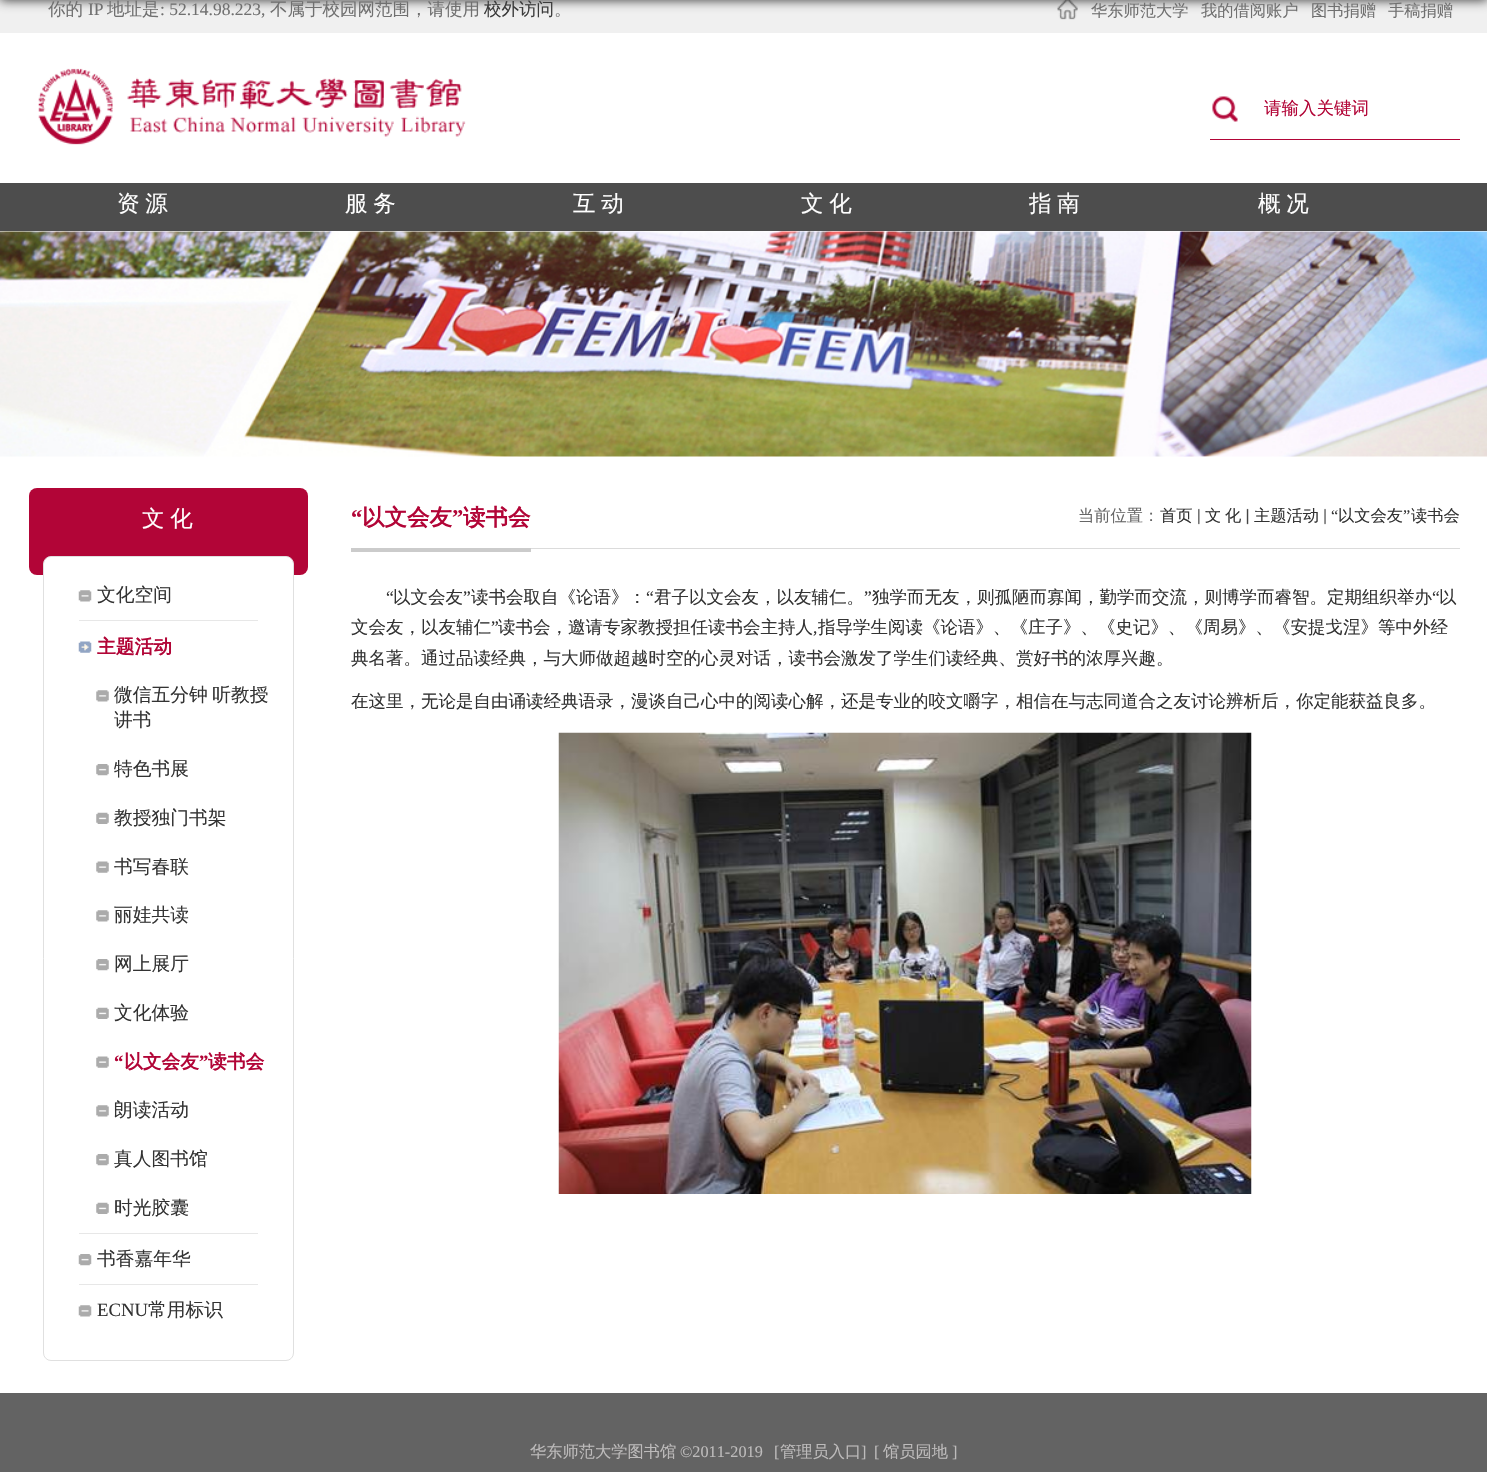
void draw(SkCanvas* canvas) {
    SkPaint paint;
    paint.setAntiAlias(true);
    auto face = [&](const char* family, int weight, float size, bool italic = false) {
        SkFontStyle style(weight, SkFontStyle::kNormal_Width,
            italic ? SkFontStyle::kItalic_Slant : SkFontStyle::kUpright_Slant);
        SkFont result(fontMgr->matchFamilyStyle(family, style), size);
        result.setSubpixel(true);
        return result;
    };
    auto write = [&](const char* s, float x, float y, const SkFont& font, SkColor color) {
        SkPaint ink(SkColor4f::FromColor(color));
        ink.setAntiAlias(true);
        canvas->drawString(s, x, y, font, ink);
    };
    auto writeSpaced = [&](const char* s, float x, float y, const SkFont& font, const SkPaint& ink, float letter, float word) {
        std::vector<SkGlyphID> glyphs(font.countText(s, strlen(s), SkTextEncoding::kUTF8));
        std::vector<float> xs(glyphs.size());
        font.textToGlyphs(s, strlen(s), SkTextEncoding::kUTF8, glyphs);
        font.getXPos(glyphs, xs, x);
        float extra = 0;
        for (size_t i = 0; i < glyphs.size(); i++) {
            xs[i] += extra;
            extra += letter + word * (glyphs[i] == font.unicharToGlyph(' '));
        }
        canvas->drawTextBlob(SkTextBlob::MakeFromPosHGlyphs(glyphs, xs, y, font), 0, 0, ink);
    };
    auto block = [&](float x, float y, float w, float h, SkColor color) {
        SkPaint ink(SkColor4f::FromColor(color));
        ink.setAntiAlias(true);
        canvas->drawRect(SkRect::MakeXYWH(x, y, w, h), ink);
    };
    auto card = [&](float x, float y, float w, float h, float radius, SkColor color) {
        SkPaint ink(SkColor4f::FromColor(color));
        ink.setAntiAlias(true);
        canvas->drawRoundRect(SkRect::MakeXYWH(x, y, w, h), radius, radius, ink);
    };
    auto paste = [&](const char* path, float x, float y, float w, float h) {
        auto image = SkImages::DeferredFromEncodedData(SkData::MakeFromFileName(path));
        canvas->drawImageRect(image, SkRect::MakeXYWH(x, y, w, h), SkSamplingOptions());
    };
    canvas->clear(SK_ColorWHITE);
    block(0, 0, 1487, 33, SkColorSetRGB(240, 240, 240));
    paste("pic1.png", 1057, 0, 21, 20);
    paint.setColor(SkColorSetARGB(204, 0, 0, 0));
    paint.setMaskFilter(SkMaskFilter::MakeBlur(kNormal_SkBlurStyle, 6));
    canvas->drawRect(SkRect::MakeXYWH(0, -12, 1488, 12), paint);
    paint.setMaskFilter(nullptr);
    auto kFont1 = face("WenQuanYi Zen Hei", 500, 17.5f);
    write("你的", 48, 15, kFont1, SkColorSetRGB(112, 112, 112));
    auto kFont2 = face("Liberation Serif", 400, 17.5f);
    write("IP", 88, 15, kFont2, SkColorSetRGB(112, 112, 112));
    write("地址是", 107, 15, kFont1, SkColorSetRGB(112, 112, 112));
    write(": 52.14.98.223,", 160, 15, kFont2, SkColorSetRGB(112, 112, 112));
    write("不属于校园网范围，请使用", 270, 15, kFont1, SkColorSetRGB(112, 112, 112));
    write("校外访问", 484, 15, kFont1, SkColorSetRGB(59, 59, 59));
    write("。", 554, 15, kFont1, SkColorSetRGB(112, 112, 112));
    auto kFont3 = face("WenQuanYi Zen Hei", 500, 16.25f);
    write("华东师范大学", 1091, 16, kFont3, SkColorSetRGB(112, 112, 112));
    write("我的借阅账户", 1201, 16, kFont3, SkColorSetRGB(112, 112, 112));
    write("图书捐赠", 1311, 16, kFont3, SkColorSetRGB(112, 112, 112));
    write("手稿捐赠", 1388, 16, kFont3, SkColorSetRGB(112, 112, 112));
    paste("pic2.png", 38, 68, 428, 77);
    block(1210, 139, 250, 1, SkColorSetRGB(178, 5, 55));
    paste("pic3.png", 1212, 96, 26, 26);
    write("请输入关键词", 1264, 114, kFont1, SkColorSetRGB(178, 5, 55));
    block(0, 183, 1487, 48, SkColorSetRGB(77, 77, 77));
    auto kFont4 = face("WenQuanYi Zen Hei", 500, 22.5f);
    paint.setColor(SK_ColorWHITE);
    writeSpaced("资 源", 117, 211, kFont4, paint, 0, -1);
    writeSpaced("服 务", 345, 211, kFont4, paint, 0, -1);
    writeSpaced("互 动", 573, 211, kFont4, paint, 0, -1);
    writeSpaced("文 化", 801, 211, kFont4, paint, 0, -1);
    writeSpaced("指 南", 1029, 211, kFont4, paint, 0, -1);
    writeSpaced("概 况", 1258, 211, kFont4, paint, 0, -1);
    paste("pic4.png", 0, 231, 1487, 226);
    card(29, 488, 279, 87, 8, SkColorSetRGB(178, 5, 55));
    writeSpaced("文 化", 142, 526, kFont4, paint, 0, -1);
    canvas->drawRoundRect(SkRect::MakeXYWH(43.5f, 556.5f, 250, 804), 7.5f, 7.5f, paint);
    paint.setStyle(SkPaint::kStroke_Style);
    paint.setStrokeWidth(1);
    paint.setColor(SkColorSetRGB(224, 224, 224));
    canvas->drawRoundRect(SkRect::MakeXYWH(43.5f, 556.5f, 250, 804), 7.5f, 7.5f, paint);
    paste("pic5.png", 78, 590, 14, 12);
    auto kFont5 = face("WenQuanYi Zen Hei", 500, 18.75f);
    write("文化空间", 97, 601, kFont5, SkColorSetRGB(51, 51, 51));
    block(79, 620, 179, 1, SkColorSetRGB(231, 231, 231));
    paste("pic6.png", 78, 641, 14, 12);
    auto kFont6 = face("WenQuanYi Zen Hei", 700, 18.75f);
    write("主题活动", 97, 653, kFont6, SkColorSetRGB(178, 5, 55));
    paste("pic7.png", 96, 690, 13, 12);
    paint.setStyle(SkPaint::kFill_Style);
    paint.setColor(SkColorSetRGB(51, 51, 51));
    writeSpaced("微信五分钟 听教授", 114, 701, kFont5, paint, 0, -1);
    write("讲书", 114, 726, kFont5, SkColorSetRGB(51, 51, 51));
    paste("pic8.png", 96, 764, 13, 12);
    write("特色书展", 114, 775, kFont5, SkColorSetRGB(51, 51, 51));
    paste("pic9.png", 96, 812, 13, 12);
    write("教授独门书架", 114, 824, kFont5, SkColorSetRGB(51, 51, 51));
    paste("pic10.png", 96, 861, 13, 12);
    write("书写春联", 114, 873, kFont5, SkColorSetRGB(51, 51, 51));
    paste("pic7.png", 96, 910, 13, 12);
    write("丽娃共读", 114, 921, kFont5, SkColorSetRGB(51, 51, 51));
    paste("pic8.png", 96, 959, 13, 12);
    write("网上展厅", 114, 970, kFont5, SkColorSetRGB(51, 51, 51));
    paste("pic9.png", 96, 1007, 13, 12);
    write("文化体验", 114, 1019, kFont5, SkColorSetRGB(51, 51, 51));
    paste("pic10.png", 96, 1056, 13, 12);
    auto kFont7 = face("Liberation Serif", 700, 18.75f);
    write("“", 114, 1068, kFont7, SkColorSetRGB(178, 5, 55));
    write("以文会友", 124, 1068, kFont6, SkColorSetRGB(178, 5, 55));
    write("”", 199, 1068, kFont7, SkColorSetRGB(178, 5, 55));
    write("读书会", 208, 1068, kFont6, SkColorSetRGB(178, 5, 55));
    paste("pic7.png", 96, 1105, 13, 12);
    write("朗读活动", 114, 1116, kFont5, SkColorSetRGB(51, 51, 51));
    paste("pic8.png", 96, 1154, 13, 12);
    write("真人图书馆", 114, 1165, kFont5, SkColorSetRGB(51, 51, 51));
    paste("pic9.png", 96, 1202, 13, 12);
    write("时光胶囊", 114, 1214, kFont5, SkColorSetRGB(51, 51, 51));
    block(79, 1233, 179, 1, SkColorSetRGB(231, 231, 231));
    paste("pic11.png", 78, 1254, 14, 12);
    write("书香嘉年华", 97, 1265, kFont5, SkColorSetRGB(51, 51, 51));
    block(79, 1284, 179, 1, SkColorSetRGB(231, 231, 231));
    paste("pic5.png", 78, 1305, 14, 12);
    auto kFont8 = face("Liberation Serif", 400, 18.75f);
    write("ECNU", 97, 1316, kFont8, SkColorSetRGB(51, 51, 51));
    write("常用标识", 148, 1316, kFont5, SkColorSetRGB(51, 51, 51));
    block(531, 548, 929, 1, SkColorSetRGB(219, 219, 219));
    block(351, 548, 180, 4, SkColorSetRGB(203, 203, 203));
    auto kFont9 = face("Liberation Serif", 700, 22.5f);
    write("“", 351, 525, kFont9, SkColorSetRGB(178, 5, 55));
    auto kFont10 = face("WenQuanYi Zen Hei", 700, 22.5f);
    write("以文会友", 362, 525, kFont10, SkColorSetRGB(178, 5, 55));
    write("”", 452, 525, kFont9, SkColorSetRGB(178, 5, 55));
    write("读书会", 463, 525, kFont10, SkColorSetRGB(178, 5, 55));
    write("当前位置：", 1078, 521, kFont3, SkColorSetRGB(102, 102, 102));
    write("首页", 1160, 521, kFont3, SkColorSetRGB(51, 51, 51));
    paste("pic12.png", 1198, 508, 2, 17);
    writeSpaced("文 化", 1205, 521, kFont3, paint, 0, -1);
    paste("pic13.png", 1246, 508, 3, 17);
    write("主题活动", 1254, 521, kFont3, SkColorSetRGB(51, 51, 51));
    paste("pic14.png", 1324, 508, 2, 17);
    auto kFont11 = face("Liberation Serif", 400, 16.25f);
    write("“", 1331, 521, kFont11, SkColorSetRGB(51, 51, 51));
    write("以文会友", 1338, 521, kFont3, SkColorSetRGB(51, 51, 51));
    write("”", 1403, 521, kFont11, SkColorSetRGB(51, 51, 51));
    write("读书会", 1411, 521, kFont3, SkColorSetRGB(51, 51, 51));
    write("“", 386, 603, kFont2, SkColorSetRGB(51, 51, 51));
    write("以文会友", 393, 603, kFont1, SkColorSetRGB(51, 51, 51));
    write("”", 463, 603, kFont2, SkColorSetRGB(51, 51, 51));
    write("读书会取自《论语》：", 471, 603, kFont1, SkColorSetRGB(51, 51, 51));
    write("“", 646, 603, kFont2, SkColorSetRGB(51, 51, 51));
    write("君子以文会友，以友辅仁。", 654, 603, kFont1, SkColorSetRGB(51, 51, 51));
    write("”", 864, 603, kFont2, SkColorSetRGB(51, 51, 51));
    write("独学而无友，则孤陋而寡闻，勤学而交流，则博学而睿智。定期组织举办", 872, 603, kFont1, SkColorSetRGB(51, 51, 51));
    write("“", 1432, 603, kFont2, SkColorSetRGB(51, 51, 51));
    write("以", 1439, 603, kFont1, SkColorSetRGB(51, 51, 51));
    write("文会友，以友辅仁", 351, 633, kFont1, SkColorSetRGB(51, 51, 51));
    write("”", 491, 633, kFont2, SkColorSetRGB(51, 51, 51));
    write("读书会，邀请专家教授担任读书会主持人", 498, 633, kFont1, SkColorSetRGB(51, 51, 51));
    write("指导学生阅读《论语》、《庄子》、《史记》、《周易》、《安提戈涅》等中外经", 818, 633, kFont1, SkColorSetRGB(51, 51, 51));
    write(",", 813, 633, kFont2, SkColorSetRGB(51, 51, 51));
    write("典名著。通过品读经典，与大师做超越时空的心灵对话，读书会激发了学生们读经典、赏好书的浓厚兴趣。", 351, 664, kFont1, SkColorSetRGB(51, 51, 51));
    write("在这里，无论是自由诵读经典语录，漫谈自己心中的阅读心解，还是专业的咬文嚼字，相信在与志同道合之友讨论辨析后，你定能获益良多。", 351, 707, kFont1, SkColorSetRGB(51, 51, 51));
    paste("pic15.png", 558, 732, 694, 462);
    block(0, 1393, 1487, 79, SkColorSetRGB(99, 99, 99));
    write("华东师范大学图书馆", 530, 1457, kFont3, SkColorSetRGB(189, 187, 187));
    write("©2011-2019", 680, 1457, kFont11, SkColorSetRGB(189, 187, 187));
    write("[", 774, 1457, kFont11, SkColorSetRGB(189, 187, 187));
    write("管理员入口", 780, 1457, kFont3, SkColorSetRGB(189, 187, 187));
    write("]", 861, 1457, kFont11, SkColorSetRGB(189, 187, 187));
    write("[", 874, 1457, kFont11, SkColorSetRGB(189, 187, 187));
    write("馆员园地", 883, 1457, kFont3, SkColorSetRGB(189, 187, 187));
    write("]", 952, 1457, kFont11, SkColorSetRGB(189, 187, 187));
}
